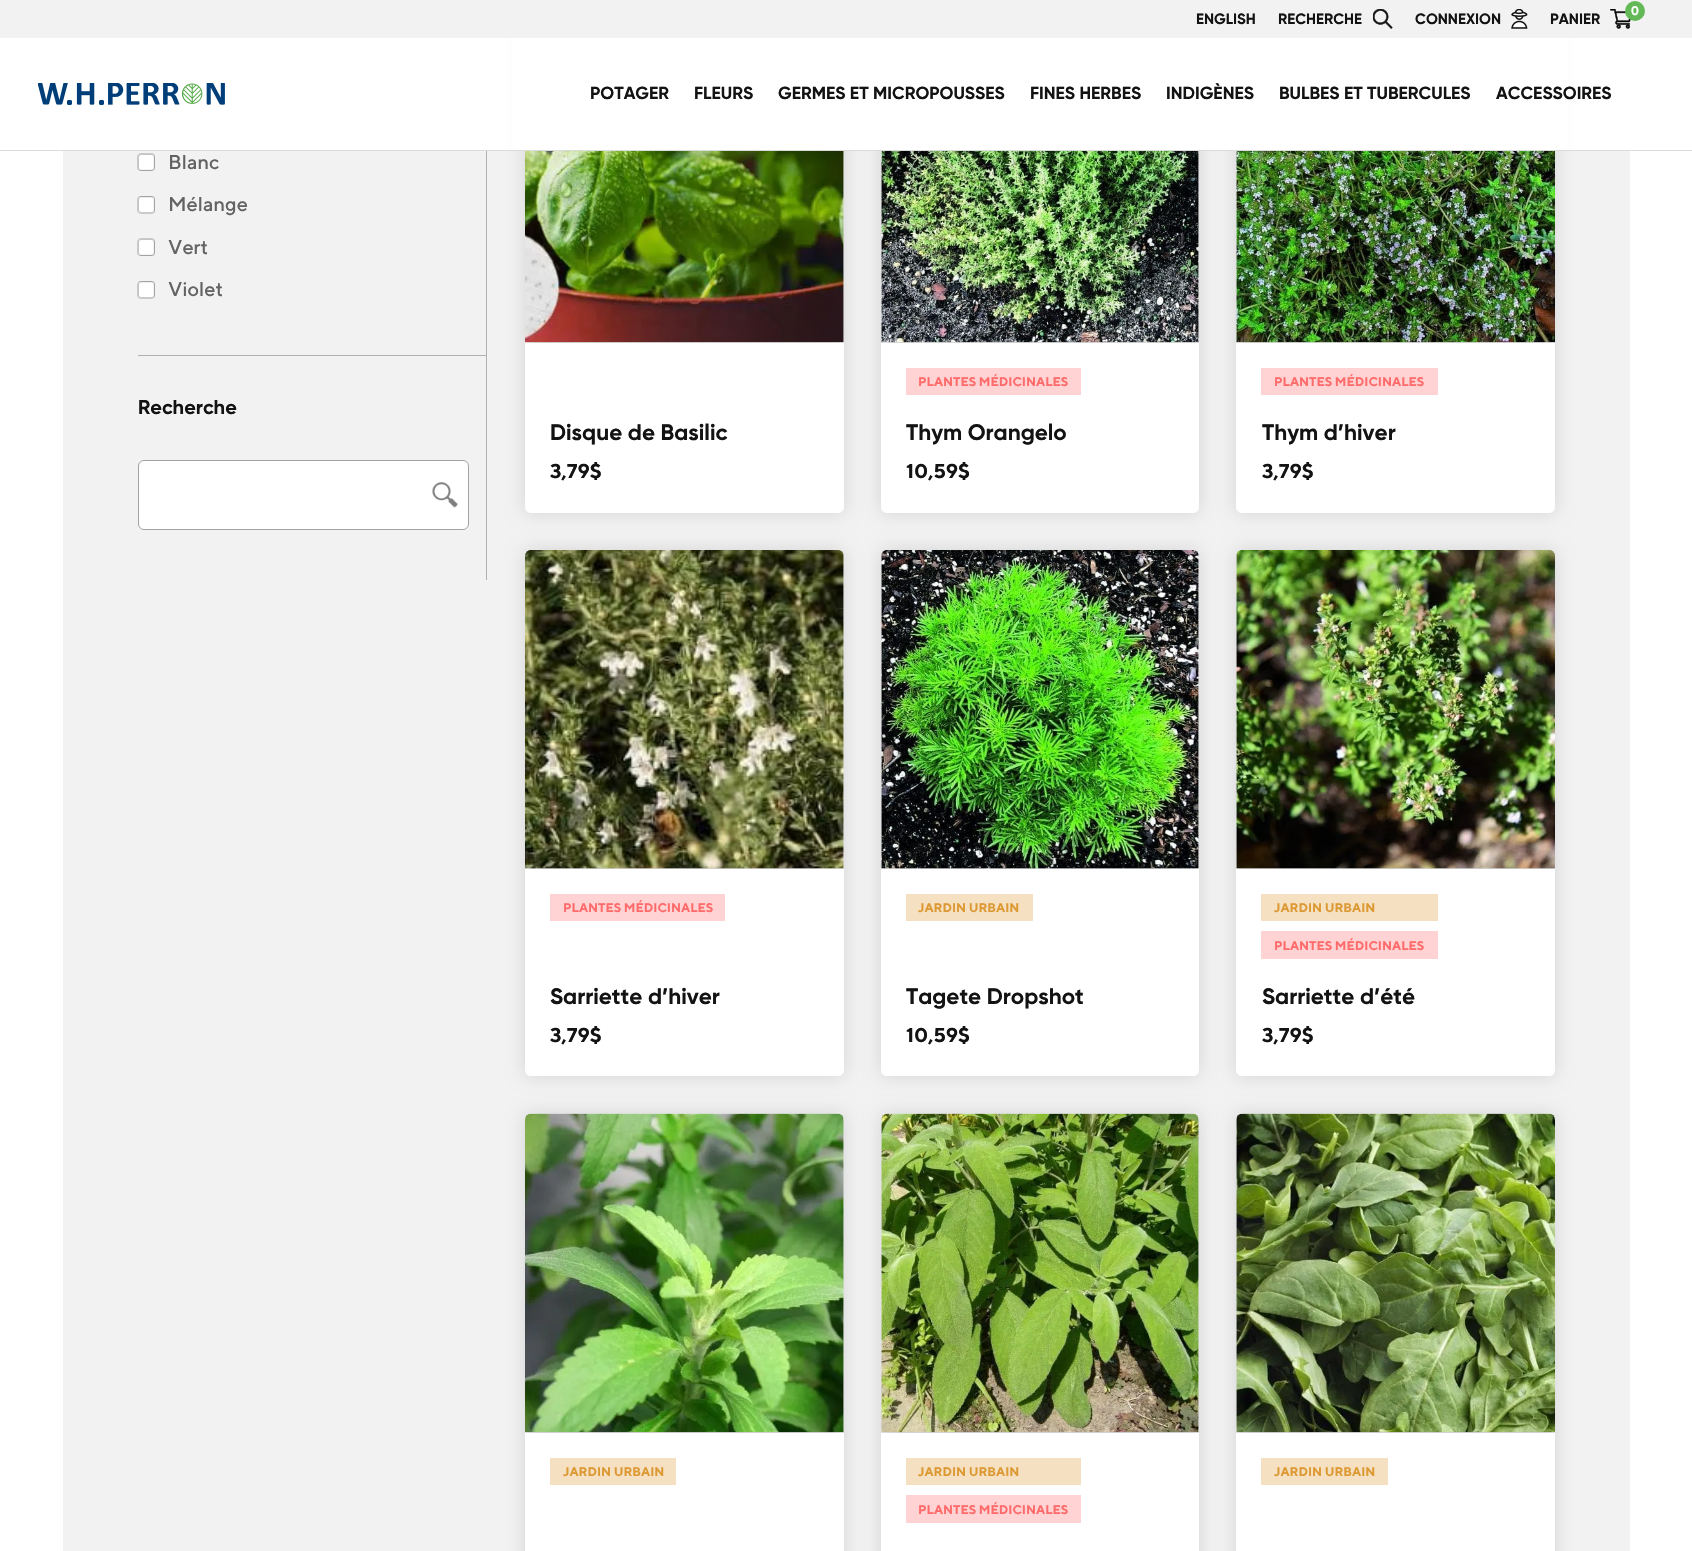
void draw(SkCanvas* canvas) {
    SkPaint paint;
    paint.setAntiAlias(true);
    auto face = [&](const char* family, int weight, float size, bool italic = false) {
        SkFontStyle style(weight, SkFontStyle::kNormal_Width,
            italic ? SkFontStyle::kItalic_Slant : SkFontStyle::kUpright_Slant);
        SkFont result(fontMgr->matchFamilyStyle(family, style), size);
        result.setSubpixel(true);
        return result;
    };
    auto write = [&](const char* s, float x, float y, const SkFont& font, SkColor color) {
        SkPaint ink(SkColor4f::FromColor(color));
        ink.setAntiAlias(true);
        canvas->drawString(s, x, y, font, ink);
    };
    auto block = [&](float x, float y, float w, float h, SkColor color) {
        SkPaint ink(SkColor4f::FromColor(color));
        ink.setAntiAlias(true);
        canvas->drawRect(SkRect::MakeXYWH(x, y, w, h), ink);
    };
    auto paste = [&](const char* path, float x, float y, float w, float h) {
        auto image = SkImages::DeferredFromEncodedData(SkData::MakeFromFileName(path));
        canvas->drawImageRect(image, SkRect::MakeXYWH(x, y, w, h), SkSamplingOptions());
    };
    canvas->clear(SK_ColorWHITE);
    block(63, 151, 1567, 1400, SkColorSetRGB(242, 242, 242));
    paint.setColor(SkColorSetARGB(33, 0, 0, 0));
    paint.setMaskFilter(SkMaskFilter::MakeBlur(kNormal_SkBlurStyle, 9));
    canvas->drawRoundRect(SkRect::MakeXYWH(525, 24, 319, 489), 6, 6, paint);
    paint.setMaskFilter(nullptr);
    paint.setMaskFilter(SkMaskFilter::MakeBlur(kNormal_SkBlurStyle, 9));
    canvas->drawRoundRect(SkRect::MakeXYWH(881, 24, 318, 489), 6, 6, paint);
    paint.setMaskFilter(nullptr);
    paint.setMaskFilter(SkMaskFilter::MakeBlur(kNormal_SkBlurStyle, 9));
    canvas->drawRoundRect(SkRect::MakeXYWH(1236, 24, 319, 489), 6, 6, paint);
    paint.setMaskFilter(nullptr);
    block(0, 150, 1692, 1, SkColorSetRGB(219, 219, 219));
    block(0, 0, 1692, 38, SkColorSetRGB(242, 242, 242));
    auto kFont1 = face("Gilroy", 700, 15);
    write("ENGLISH", 1196, 24, kFont1, SkColorSetRGB(19, 19, 19));
    write("RECHERCHE", 1278, 24, kFont1, SkColorSetRGB(19, 19, 19));
    paste("pic1.png", 1373, 9, 20, 20);
    write("CONNEXION", 1415, 24, kFont1, SkColorSetRGB(19, 19, 19));
    paste("pic2.png", 1511, 9, 17, 20);
    write("PANIER", 1550, 24, kFont1, SkColorSetRGB(19, 19, 19));
    paste("pic3.png", 1610, 9, 21, 20);
    paint.setColor(SkColorSetRGB(99, 185, 86));
    canvas->drawCircle(1635, 11, 10, paint);
    auto kFont2 = face("Gilroy", 700, 12.5f);
    write("0", 1631, 15, kFont2, SK_ColorWHITE);
    block(512, 38, 1056, 112, SK_ColorWHITE);
    paste("pic4.png", 38, 83, 187, 22);
    auto kFont3 = face("Gilroy", 700, 17.5f);
    write("POTAGER", 590, 99, kFont3, SkColorSetRGB(19, 19, 19));
    write("FLEURS", 694, 99, kFont3, SkColorSetRGB(19, 19, 19));
    write("GERMES ET MICROPOUSSES", 778, 99, kFont3, SkColorSetRGB(19, 19, 19));
    write("FINES HERBES", 1030, 99, kFont3, SkColorSetRGB(19, 19, 19));
    write("INDIGÈNES", 1166, 99, kFont3, SkColorSetRGB(19, 19, 19));
    write("BULBES ET TUBERCULES", 1279, 99, kFont3, SkColorSetRGB(19, 19, 19));
    write("ACCESSOIRES", 1496, 99, kFont3, SkColorSetRGB(19, 19, 19));
    block(486, 151, 1, 429, SkColorSetRGB(177, 177, 177));
    paste("pic5.png", 137, 153, 18, 18);
    auto kFont4 = face("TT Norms", 500, 20);
    write("Blanc", 168, 169, kFont4, SkColorSetRGB(99, 99, 99));
    paste("pic6.png", 137, 196, 18, 18);
    write("Mélange", 168, 211, kFont4, SkColorSetRGB(99, 99, 99));
    paste("pic5.png", 137, 238, 18, 18);
    write("Vert", 168, 254, kFont4, SkColorSetRGB(99, 99, 99));
    paste("pic6.png", 137, 281, 18, 18);
    write("Violet", 168, 296, kFont4, SkColorSetRGB(99, 99, 99));
    block(138, 355, 348, 1, SkColorSetRGB(177, 177, 177));
    auto kFont5 = face("Gilroy", 700, 20);
    write("Recherche", 138, 414, kFont5, SkColorSetRGB(19, 19, 19));
    paint.setColor(SK_ColorWHITE);
    canvas->drawRoundRect(SkRect::MakeXYWH(138.5f, 460.5f, 330, 69), 5.5f, 5.5f, paint);
    paint.setStyle(SkPaint::kStroke_Style);
    paint.setStrokeWidth(1);
    paint.setColor(SkColorSetRGB(162, 162, 162));
    canvas->drawRoundRect(SkRect::MakeXYWH(138.5f, 460.5f, 330, 69), 5.5f, 5.5f, paint);
    paste("pic7.png", 432, 482, 26, 26);
    paste("pic8.png", 525, 151, 319, 192);
    paint.setStyle(SkPaint::kFill_Style);
    paint.setColor(SK_ColorWHITE);
    canvas->drawPath(SkPathBuilder().moveTo(525, 343).lineTo(844, 343).lineTo(844, 507).cubicTo(844, 510.5f, 841.5f, 513, 838, 513).lineTo(531, 513).cubicTo(527.5f, 513, 525, 510.5f, 525, 507).close().detach(), paint);
    auto kFont6 = face("Gilroy", 700, 22.5f);
    write("Disque de Basilic", 550, 440, kFont6, SkColorSetRGB(19, 19, 19));
    auto kFont7 = face("TT Norms", 700, 20);
    write("3,79$", 550, 478, kFont7, SkColorSetRGB(19, 19, 19));
    paste("pic9.png", 881, 151, 318, 192);
    canvas->drawPath(SkPathBuilder().moveTo(881, 343).lineTo(1199, 343).lineTo(1199, 507).cubicTo(1199, 510.5f, 1196.5f, 513, 1193, 513).lineTo(887, 513).cubicTo(883.5f, 513, 881, 510.5f, 881, 507).close().detach(), paint);
    block(906, 368, 175, 27, SkColorSetRGB(255, 211, 211));
    auto kFont8 = face("TT Norms", 700, 12.5f);
    write("PLANTES MÉDICINALES", 918, 386, kFont8, SkColorSetRGB(255, 107, 107));
    write("Thym Orangelo", 906, 440, kFont6, SkColorSetRGB(19, 19, 19));
    write("10,59$", 906, 478, kFont7, SkColorSetRGB(19, 19, 19));
    paste("pic10.png", 1236, 151, 319, 192);
    canvas->drawPath(SkPathBuilder().moveTo(1236, 343).lineTo(1555, 343).lineTo(1555, 507).cubicTo(1555, 510.5f, 1552.5f, 513, 1549, 513).lineTo(1242, 513).cubicTo(1238.5f, 513, 1236, 510.5f, 1236, 507).close().detach(), paint);
    block(1261, 368, 177, 27, SkColorSetRGB(255, 211, 211));
    write("PLANTES MÉDICINALES", 1274, 386, kFont8, SkColorSetRGB(255, 107, 107));
    write("Thym d’hiver", 1262, 440, kFont6, SkColorSetRGB(19, 19, 19));
    write("3,79$", 1262, 478, kFont7, SkColorSetRGB(19, 19, 19));
    paint.setColor(SkColorSetARGB(33, 0, 0, 0));
    paint.setMaskFilter(SkMaskFilter::MakeBlur(kNormal_SkBlurStyle, 9));
    canvas->drawRoundRect(SkRect::MakeXYWH(525, 550, 319, 526), 6, 6, paint);
    paint.setMaskFilter(nullptr);
    paste("pic11.png", 525, 550, 319, 319);
    paint.setColor(SK_ColorWHITE);
    canvas->drawPath(SkPathBuilder().moveTo(525, 869).lineTo(844, 869).lineTo(844, 1070).cubicTo(844, 1073.5f, 841.5f, 1076, 838, 1076).lineTo(531, 1076).cubicTo(527.5f, 1076, 525, 1073.5f, 525, 1070).close().detach(), paint);
    block(550, 894, 175, 27, SkColorSetRGB(255, 211, 211));
    write("PLANTES MÉDICINALES", 563, 912, kFont8, SkColorSetRGB(255, 107, 107));
    write("Sarriette d’hiver", 550, 1004, kFont6, SkColorSetRGB(19, 19, 19));
    write("3,79$", 550, 1042, kFont7, SkColorSetRGB(19, 19, 19));
    paint.setColor(SkColorSetARGB(33, 0, 0, 0));
    paint.setMaskFilter(SkMaskFilter::MakeBlur(kNormal_SkBlurStyle, 9));
    canvas->drawRoundRect(SkRect::MakeXYWH(881, 550, 318, 526), 6, 6, paint);
    paint.setMaskFilter(nullptr);
    paste("pic12.png", 881, 550, 318, 319);
    paint.setColor(SK_ColorWHITE);
    canvas->drawPath(SkPathBuilder().moveTo(881, 869).lineTo(1199, 869).lineTo(1199, 1070).cubicTo(1199, 1073.5f, 1196.5f, 1076, 1193, 1076).lineTo(887, 1076).cubicTo(883.5f, 1076, 881, 1073.5f, 881, 1070).close().detach(), paint);
    block(906, 894, 127, 27, SkColorSetRGB(245, 224, 194));
    write("JARDIN URBAIN", 918, 912, kFont8, SkColorSetRGB(221, 153, 51));
    write("Tagete Dropshot", 906, 1004, kFont6, SkColorSetRGB(19, 19, 19));
    write("10,59$", 906, 1042, kFont7, SkColorSetRGB(19, 19, 19));
    paint.setColor(SkColorSetARGB(33, 0, 0, 0));
    paint.setMaskFilter(SkMaskFilter::MakeBlur(kNormal_SkBlurStyle, 9));
    canvas->drawRoundRect(SkRect::MakeXYWH(1236, 550, 319, 526), 6, 6, paint);
    paint.setMaskFilter(nullptr);
    paste("pic13.png", 1236, 550, 319, 319);
    paint.setColor(SK_ColorWHITE);
    canvas->drawPath(SkPathBuilder().moveTo(1236, 869).lineTo(1555, 869).lineTo(1555, 1070).cubicTo(1555, 1073.5f, 1552.5f, 1076, 1549, 1076).lineTo(1242, 1076).cubicTo(1238.5f, 1076, 1236, 1073.5f, 1236, 1070).close().detach(), paint);
    block(1261, 931, 177, 28, SkColorSetRGB(255, 211, 211));
    block(1261, 894, 177, 27, SkColorSetRGB(245, 224, 194));
    write("JARDIN URBAIN", 1274, 912, kFont8, SkColorSetRGB(221, 153, 51));
    write("PLANTES MÉDICINALES", 1274, 950, kFont8, SkColorSetRGB(255, 107, 107));
    write("Sarriette d’été", 1262, 1004, kFont6, SkColorSetRGB(19, 19, 19));
    write("3,79$", 1262, 1042, kFont7, SkColorSetRGB(19, 19, 19));
    paint.setColor(SkColorSetARGB(33, 0, 0, 0));
    paint.setMaskFilter(SkMaskFilter::MakeBlur(kNormal_SkBlurStyle, 9));
    canvas->drawRoundRect(SkRect::MakeXYWH(525, 1114, 319, 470), 6, 6, paint);
    paint.setMaskFilter(nullptr);
    paste("pic14.png", 525, 1113, 319, 320);
    block(525, 1433, 319, 118, SK_ColorWHITE);
    block(550, 1458, 126, 27, SkColorSetRGB(245, 224, 194));
    write("JARDIN URBAIN", 563, 1476, kFont8, SkColorSetRGB(221, 153, 51));
    paint.setMaskFilter(SkMaskFilter::MakeBlur(kNormal_SkBlurStyle, 9));
    canvas->drawRoundRect(SkRect::MakeXYWH(881, 1114, 318, 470), 6, 6, paint);
    paint.setMaskFilter(nullptr);
    paste("pic15.png", 881, 1113, 318, 320);
    block(881, 1433, 318, 118, SK_ColorWHITE);
    block(906, 1495, 175, 28, SkColorSetRGB(255, 211, 211));
    block(906, 1458, 175, 27, SkColorSetRGB(245, 224, 194));
    write("JARDIN URBAIN", 918, 1476, kFont8, SkColorSetRGB(221, 153, 51));
    write("PLANTES MÉDICINALES", 918, 1514, kFont8, SkColorSetRGB(255, 107, 107));
    paint.setMaskFilter(SkMaskFilter::MakeBlur(kNormal_SkBlurStyle, 9));
    canvas->drawRoundRect(SkRect::MakeXYWH(1236, 1114, 319, 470), 6, 6, paint);
    paint.setMaskFilter(nullptr);
    paste("pic16.png", 1236, 1113, 319, 320);
    block(1236, 1433, 319, 118, SK_ColorWHITE);
    block(1261, 1458, 127, 27, SkColorSetRGB(245, 224, 194));
    write("JARDIN URBAIN", 1274, 1476, kFont8, SkColorSetRGB(221, 153, 51));
}
